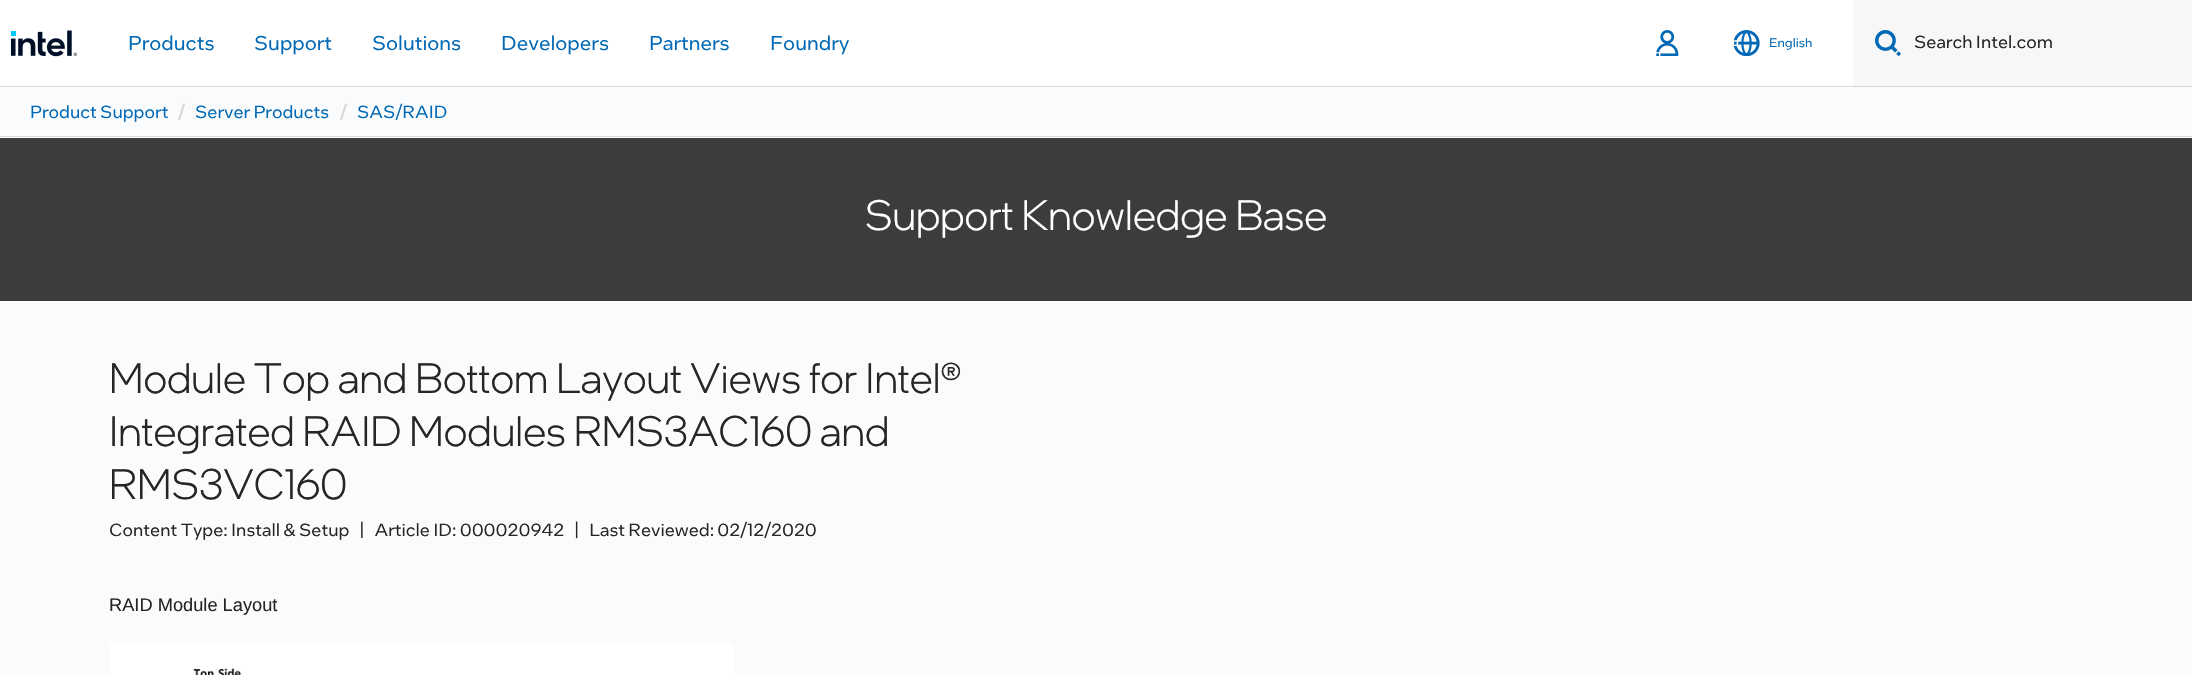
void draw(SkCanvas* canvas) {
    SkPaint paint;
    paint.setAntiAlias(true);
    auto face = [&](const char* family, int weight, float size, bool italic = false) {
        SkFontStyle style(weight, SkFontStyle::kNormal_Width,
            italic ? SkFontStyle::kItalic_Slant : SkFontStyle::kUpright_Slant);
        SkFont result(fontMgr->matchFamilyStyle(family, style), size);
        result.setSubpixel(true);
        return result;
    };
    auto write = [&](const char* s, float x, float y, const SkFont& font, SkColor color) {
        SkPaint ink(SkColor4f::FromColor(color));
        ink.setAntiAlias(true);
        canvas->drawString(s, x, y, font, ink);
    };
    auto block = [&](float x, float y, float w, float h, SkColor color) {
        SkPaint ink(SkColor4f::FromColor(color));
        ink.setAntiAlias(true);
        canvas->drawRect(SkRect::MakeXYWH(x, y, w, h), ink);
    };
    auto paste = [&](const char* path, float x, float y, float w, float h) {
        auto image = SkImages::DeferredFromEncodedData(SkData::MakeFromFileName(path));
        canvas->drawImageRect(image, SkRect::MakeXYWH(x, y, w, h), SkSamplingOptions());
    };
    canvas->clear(SkColorSetRGB(250, 251, 252));
    block(0, 0, 1853, 88, SK_ColorWHITE);
    paste("pic1.png", 10, 30, 67, 27);
    auto kFont1 = face("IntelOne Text", 400, 20);
    write("Products", 128, 50, kFont1, SkColorSetRGB(0, 104, 181));
    write("Support", 254, 50, kFont1, SkColorSetRGB(0, 104, 181));
    write("Solutions", 372, 50, kFont1, SkColorSetRGB(0, 104, 181));
    write("Developers", 501, 50, kFont1, SkColorSetRGB(0, 104, 181));
    write("Partners", 649, 50, kFont1, SkColorSetRGB(0, 104, 181));
    write("Foundry", 770, 50, kFont1, SkColorSetRGB(0, 104, 181));
    paste("pic2.png", 1656, 30, 23, 26);
    paste("pic3.png", 1734, 30, 26, 26);
    auto kFont2 = face("IntelOne Text", 400, 12.5f);
    write("English", 1769, 47, kFont2, SkColorSetRGB(0, 104, 181));
    block(1853, 0, 339, 88, SkColorSetRGB(247, 247, 247));
    paste("pic4.png", 1875, 30, 26, 26);
    auto kFont3 = face("IntelOne Text", 400, 17.5f);
    write("Search Intel.com", 1914, 48, kFont3, SkColorSetRGB(38, 38, 38));
    block(0, 86, 2192, 1, SkColorSetRGB(215, 215, 215));
    block(0, 136, 2192, 1, SkColorSetRGB(215, 215, 215));
    write("Product Support", 30, 118, kFont3, SkColorSetRGB(0, 104, 181));
    auto kFont4 = face("IntelOne Text", 500, 17.5f);
    write("/", 178, 118, kFont4, SkColorSetRGB(215, 215, 215));
    write("Server Products", 195, 118, kFont3, SkColorSetRGB(0, 104, 181));
    write("/", 340, 118, kFont4, SkColorSetRGB(215, 215, 215));
    write("SAS/RAID", 357, 118, kFont3, SkColorSetRGB(0, 104, 181));
    block(0, 138, 2192, 163, SkColorSetRGB(60, 60, 60));
    auto kFont5 = face("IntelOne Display", 300, 42.5f);
    write("Support Knowledge Base", 865, 230, kFont5, SK_ColorWHITE);
    write("Module Top and Bottom Layout Views for Intel®", 109, 393, kFont5, SkColorSetRGB(38, 38, 38));
    write("Integrated RAID Modules RMS3AC160 and", 109, 446, kFont5, SkColorSetRGB(38, 38, 38));
    write("RMS3VC160", 109, 499, kFont5, SkColorSetRGB(38, 38, 38));
    write("Content Type: Install & Setup   |   Article ID: 000020942   |   Last Reviewed: 02/12/2020", 109, 536, kFont3, SkColorSetRGB(38, 38, 38));
    auto kFont6 = face("Liberation Sans", 400, 18.25f);
    write("RAID Module Layout", 109, 611, kFont6, SkColorSetRGB(38, 38, 38));
    paste("pic5.png", 109, 643, 624, 32);
}
